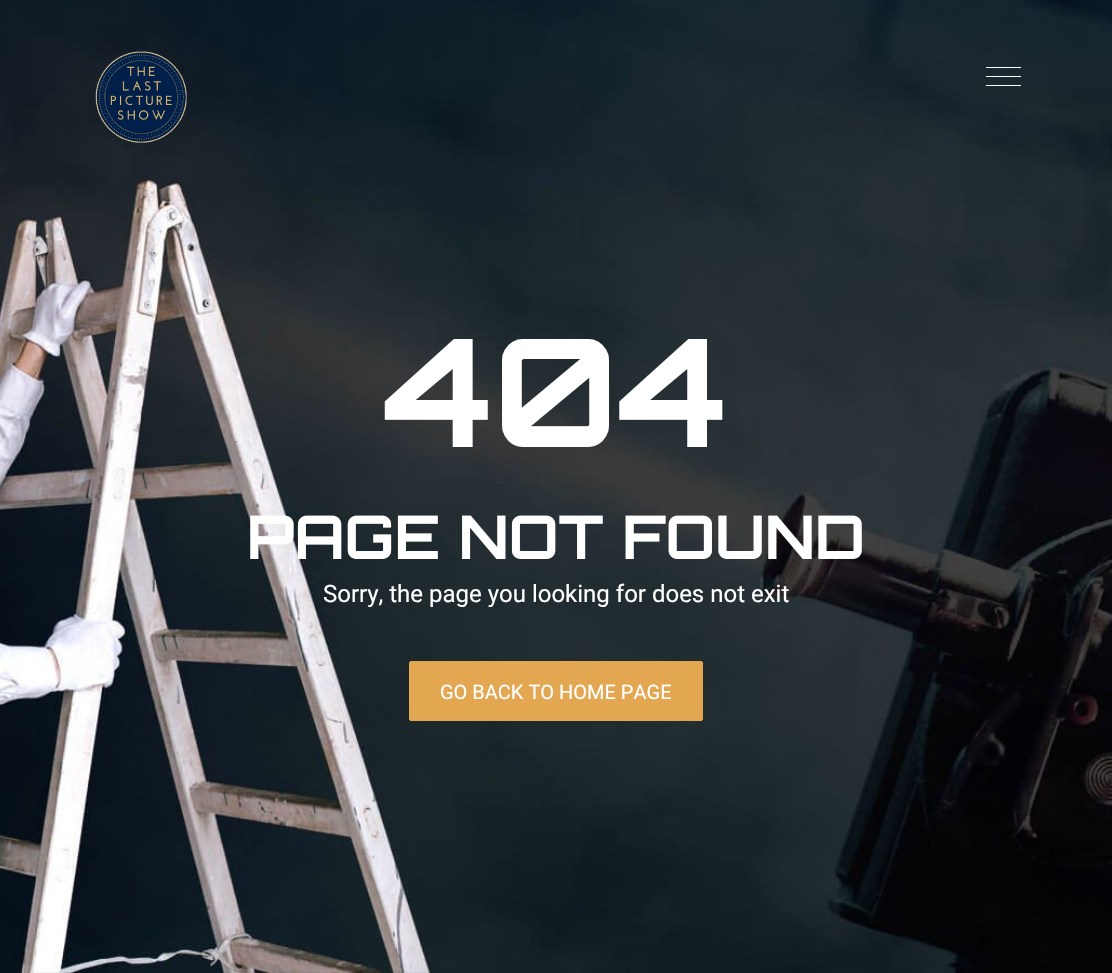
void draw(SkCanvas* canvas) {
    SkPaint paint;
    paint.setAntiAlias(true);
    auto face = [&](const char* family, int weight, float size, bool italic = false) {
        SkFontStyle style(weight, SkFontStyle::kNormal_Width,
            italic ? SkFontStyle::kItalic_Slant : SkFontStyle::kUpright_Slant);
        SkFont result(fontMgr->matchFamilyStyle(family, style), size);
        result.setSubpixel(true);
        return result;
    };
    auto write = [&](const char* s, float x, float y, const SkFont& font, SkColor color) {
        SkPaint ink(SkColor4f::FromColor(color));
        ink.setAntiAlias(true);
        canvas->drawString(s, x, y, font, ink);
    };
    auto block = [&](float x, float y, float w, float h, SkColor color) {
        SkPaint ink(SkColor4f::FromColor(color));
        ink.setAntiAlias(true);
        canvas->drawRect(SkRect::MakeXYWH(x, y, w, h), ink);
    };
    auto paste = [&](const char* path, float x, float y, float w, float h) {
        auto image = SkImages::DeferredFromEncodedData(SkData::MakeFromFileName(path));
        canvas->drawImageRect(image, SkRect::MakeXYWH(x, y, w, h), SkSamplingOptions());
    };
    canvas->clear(SK_ColorWHITE);
    paste("pic2.png", 0, 0, 1112, 973);
    paste("pic1.png", 95, 51, 92, 92);
    block(986, 67, 35, 1, SK_ColorWHITE);
    block(986, 76, 35, 1, SK_ColorWHITE);
    block(986, 85, 35, 1, SK_ColorWHITE);
    auto kFont1 = face("Orbitron", 700, 150);
    write("404", 384, 447, kFont1, SK_ColorWHITE);
    auto kFont2 = face("Orbitron", 700, 60);
    write("PAGE NOT FOUND", 247, 559, kFont2, SK_ColorWHITE);
    auto kFont3 = face("Roboto", 400, 24);
    write("Sorry, the page you looking for does not exit", 323, 602, kFont3, SK_ColorWHITE);
    paint.setColor(SkColorSetRGB(226, 167, 80));
    canvas->drawRoundRect(SkRect::MakeXYWH(409.5f, 661.5f, 293, 59), 1.5f, 1.5f, paint);
    paint.setStyle(SkPaint::kStroke_Style);
    paint.setStrokeWidth(1);
    canvas->drawRoundRect(SkRect::MakeXYWH(409.5f, 661.5f, 293, 59), 1.5f, 1.5f, paint);
    auto kFont4 = face("Roboto", 400, 20);
    write("GO BACK TO HOME PAGE", 440, 699, kFont4, SK_ColorWHITE);
}
